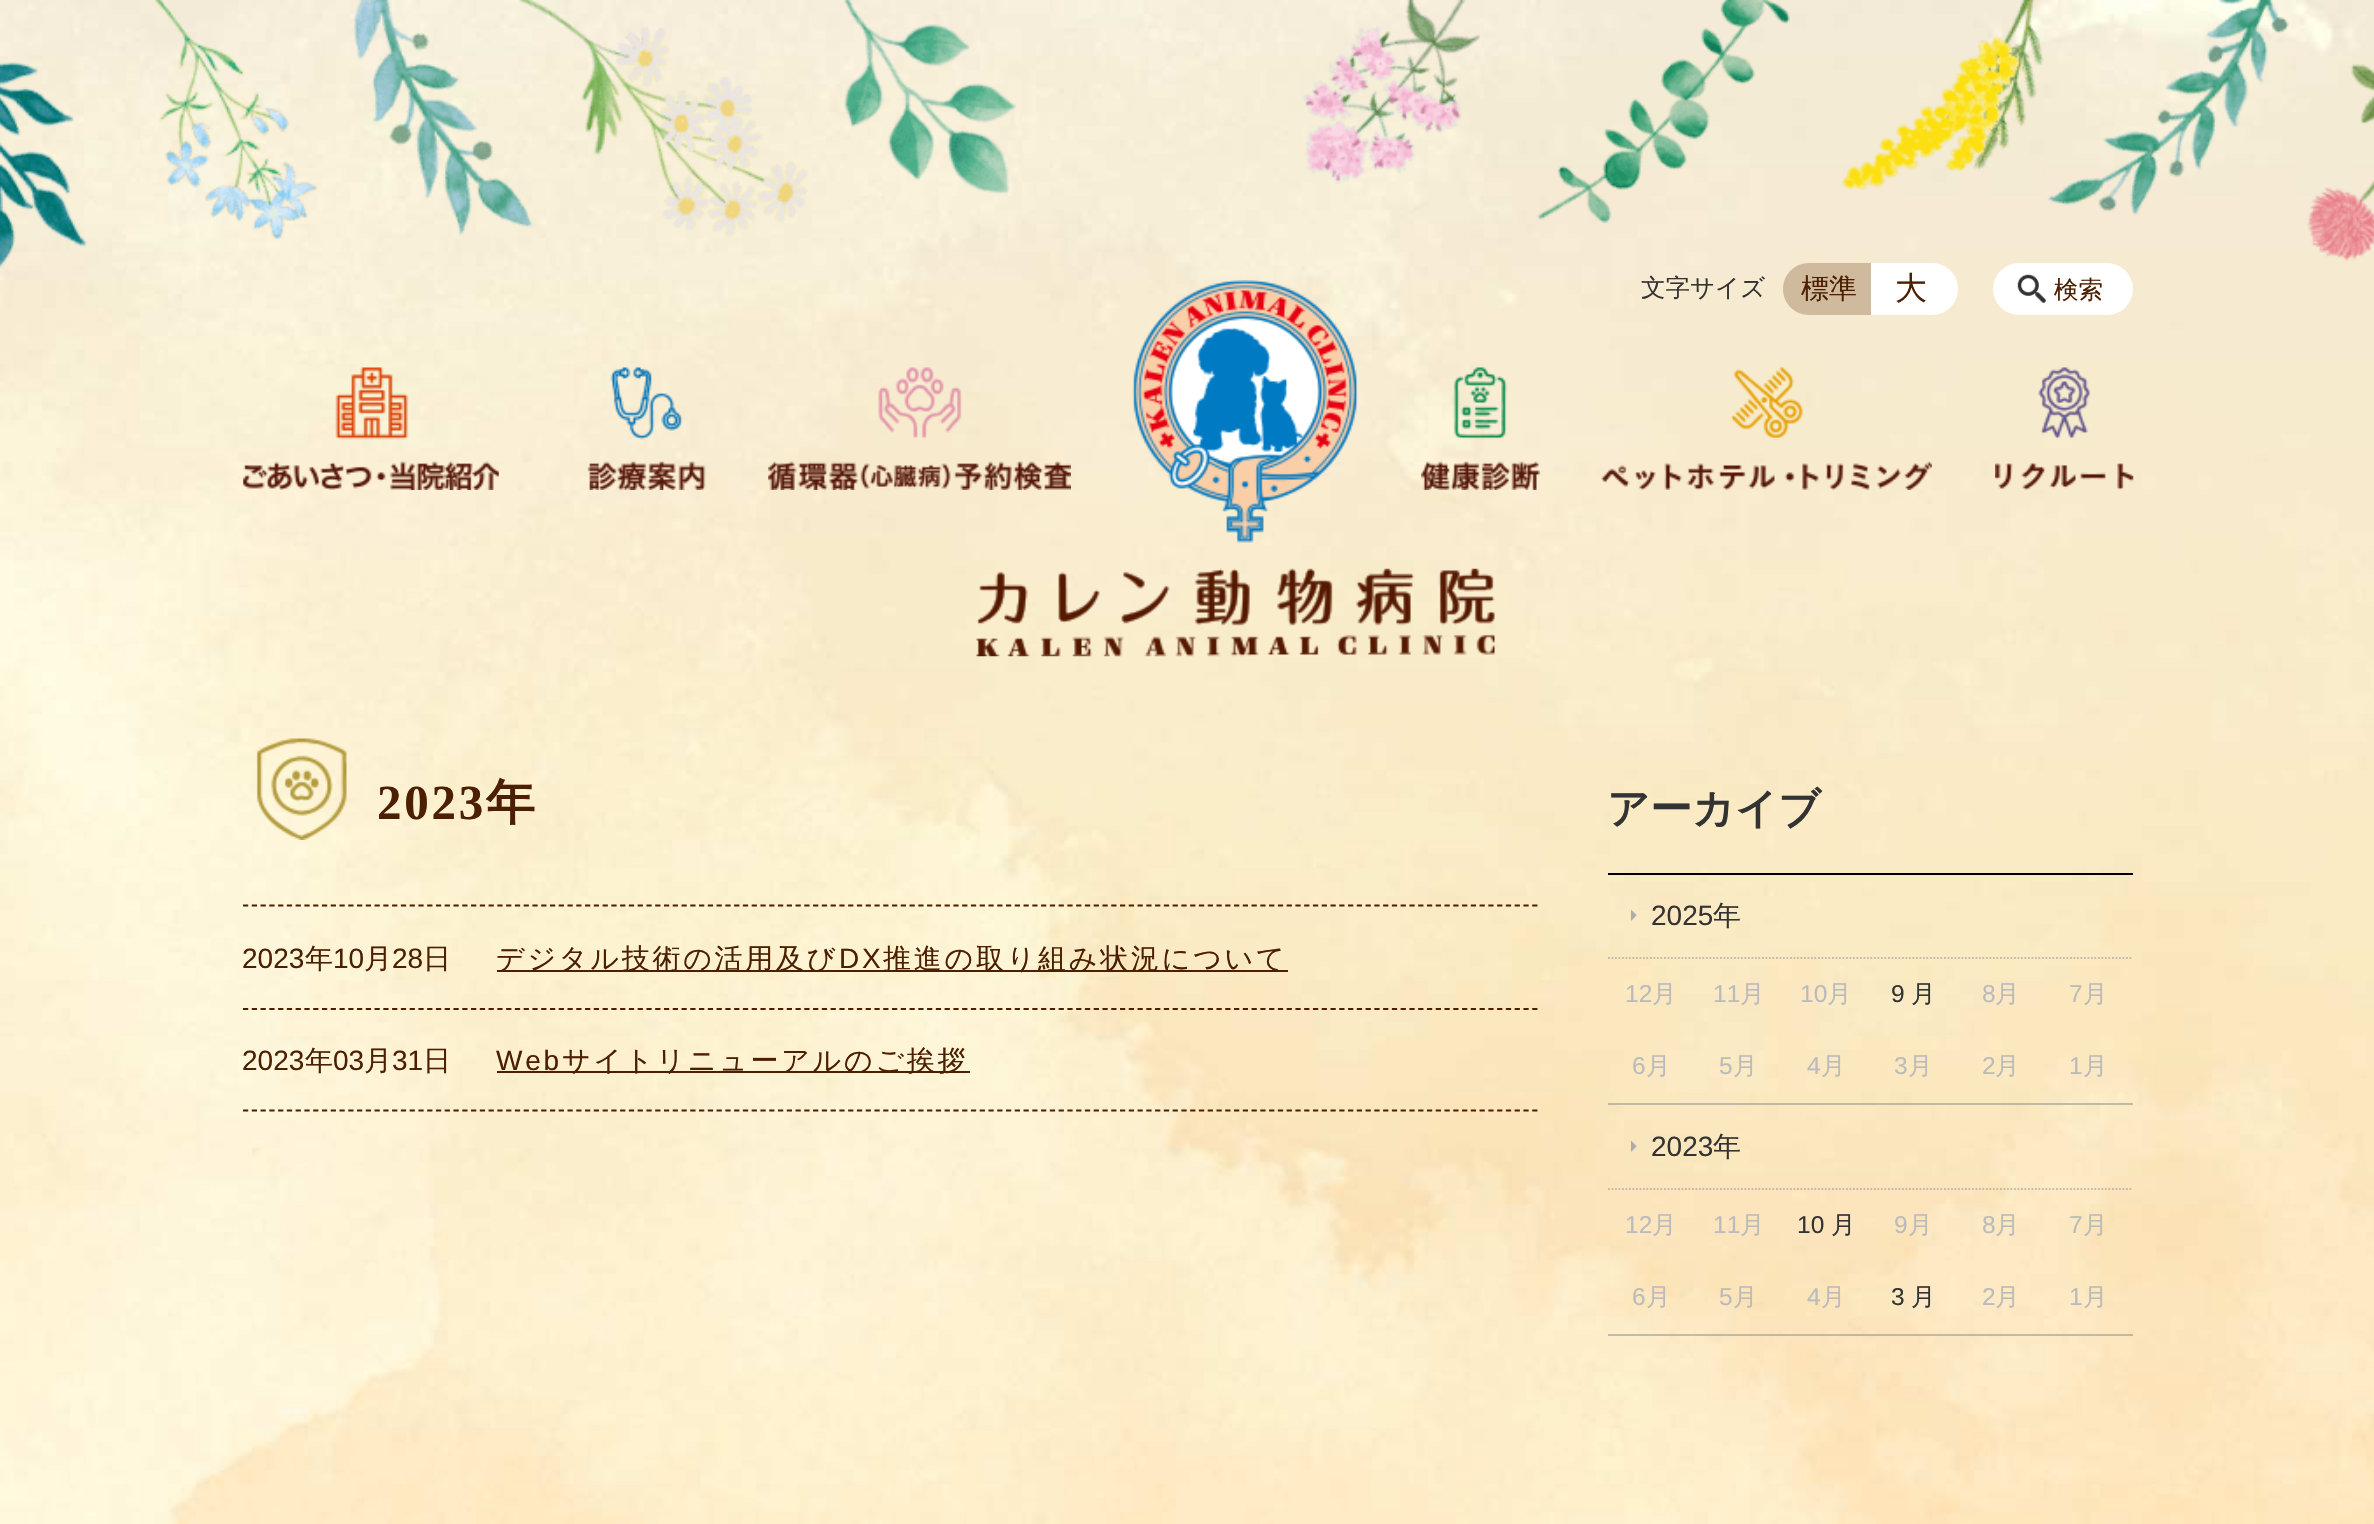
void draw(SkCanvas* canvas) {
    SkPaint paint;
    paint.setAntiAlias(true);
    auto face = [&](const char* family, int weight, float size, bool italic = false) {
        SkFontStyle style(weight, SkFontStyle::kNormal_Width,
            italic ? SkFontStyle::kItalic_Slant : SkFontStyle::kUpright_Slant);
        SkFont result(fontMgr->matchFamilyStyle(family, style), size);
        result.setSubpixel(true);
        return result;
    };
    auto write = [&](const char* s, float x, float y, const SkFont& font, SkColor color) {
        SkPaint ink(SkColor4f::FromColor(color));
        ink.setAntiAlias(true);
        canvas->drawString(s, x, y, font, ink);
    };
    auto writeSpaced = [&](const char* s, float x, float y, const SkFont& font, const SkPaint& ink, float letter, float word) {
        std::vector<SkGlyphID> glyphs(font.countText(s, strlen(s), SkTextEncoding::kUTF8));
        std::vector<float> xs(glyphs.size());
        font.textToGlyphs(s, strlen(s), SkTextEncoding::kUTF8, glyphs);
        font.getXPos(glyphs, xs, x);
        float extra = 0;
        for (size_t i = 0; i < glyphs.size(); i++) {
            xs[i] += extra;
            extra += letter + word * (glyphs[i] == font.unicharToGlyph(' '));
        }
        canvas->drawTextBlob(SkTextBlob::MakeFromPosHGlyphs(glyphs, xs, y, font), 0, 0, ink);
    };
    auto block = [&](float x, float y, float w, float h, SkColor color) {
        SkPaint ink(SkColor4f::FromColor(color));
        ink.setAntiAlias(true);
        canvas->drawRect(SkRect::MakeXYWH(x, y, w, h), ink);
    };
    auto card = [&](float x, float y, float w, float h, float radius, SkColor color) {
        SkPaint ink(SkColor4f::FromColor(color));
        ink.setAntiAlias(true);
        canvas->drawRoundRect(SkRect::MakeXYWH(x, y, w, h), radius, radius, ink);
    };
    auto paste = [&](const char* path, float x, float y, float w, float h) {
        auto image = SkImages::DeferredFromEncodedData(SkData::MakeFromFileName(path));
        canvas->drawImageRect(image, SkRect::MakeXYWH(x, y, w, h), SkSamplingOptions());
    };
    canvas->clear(SK_ColorWHITE);
    paste("pic1.png", 0, 0, 2374, 1524);
    paste("pic2.png", 0, 0, 2374, 268);
    auto kFont1 = face("WenQuanYi Zen Hei", 500, 24.5f);
    write("文字サイズ", 1641, 296, kFont1, SkColorSetRGB(51, 51, 51));
    paint.setColor(SkColorSetRGB(208, 186, 158));
    canvas->drawPath(SkPathBuilder().moveTo(1809, 263).lineTo(1871, 263).lineTo(1871, 315).lineTo(1809, 315).cubicTo(1794.5f, 315, 1783, 303.5f, 1783, 289).cubicTo(1783, 274.5f, 1794.5f, 263, 1809, 263).close().detach(), paint);
    auto kFont2 = face("WenQuanYi Zen Hei", 500, 28);
    write("標準", 1801, 298, kFont2, SkColorSetRGB(75, 31, 0));
    paint.setColor(SK_ColorWHITE);
    canvas->drawPath(SkPathBuilder().moveTo(1871, 263).lineTo(1932, 263).cubicTo(1946.5f, 263, 1958, 274.5f, 1958, 289).cubicTo(1958, 303.5f, 1946.5f, 315, 1932, 315).lineTo(1871, 315).close().detach(), paint);
    auto kFont3 = face("WenQuanYi Zen Hei", 500, 32);
    write("大", 1895, 299, kFont3, SkColorSetRGB(75, 31, 0));
    card(1993, 263, 140, 52, 26, SK_ColorWHITE);
    paste("pic3.png", 2017, 274, 29, 29);
    write("検索", 2054, 298, kFont1, SkColorSetRGB(75, 31, 0));
    paste("pic4.png", 243, 367, 256, 123);
    paste("pic5.png", 587, 367, 119, 123);
    paste("pic6.png", 768, 367, 303, 123);
    paste("pic7.png", 1132, 280, 226, 263);
    paste("pic8.png", 1421, 367, 119, 123);
    paste("pic9.png", 1601, 367, 331, 123);
    paste("pic10.png", 1995, 367, 139, 123);
    paste("pic11.png", 976, 568, 519, 89);
    paste("pic12.png", 256, 738, 91, 102);
    auto kFont4 = face("Liberation Serif", 700, 49);
    paint.setColor(SkColorSetRGB(75, 31, 0));
    writeSpaced("2023", 377, 819, kFont4, paint, 2.75f, 0);
    auto kFont5 = face("WenQuanYi Zen Hei", 700, 49);
    writeSpaced("年", 486, 819, kFont5, paint, 2.75f, 0);
    paint.setStyle(SkPaint::kStroke_Style);
    paint.setStrokeWidth(1.8f);
    paint.setPathEffect(SkDashPathEffect::Make({{5.25f, 3.52f}}, 0));
    canvas->drawPath(SkPathBuilder().moveTo(243, 905.5f).lineTo(1538, 905.5f).detach(), paint);
    paint.setPathEffect(nullptr);
    paint.setPathEffect(SkDashPathEffect::Make({{5.25f, 3.52f}}, 0));
    canvas->drawPath(SkPathBuilder().moveTo(243, 1009).lineTo(1538, 1009).detach(), paint);
    paint.setPathEffect(nullptr);
    auto kFont6 = face("Liberation Sans", 400, 28);
    write("2023", 242, 968, kFont6, SkColorSetRGB(75, 31, 0));
    write("年", 305, 968, kFont2, SkColorSetRGB(75, 31, 0));
    write("10", 333, 968, kFont6, SkColorSetRGB(75, 31, 0));
    write("月", 364, 968, kFont2, SkColorSetRGB(75, 31, 0));
    write("28", 392, 968, kFont6, SkColorSetRGB(75, 31, 0));
    write("日", 423, 968, kFont2, SkColorSetRGB(75, 31, 0));
    block(497, 970, 791, 2, SkColorSetRGB(75, 31, 0));
    paint.setStyle(SkPaint::kFill_Style);
    writeSpaced("デジタル技術の活⽤及び", 496, 968, kFont2, paint, 2.75f, 0);
    writeSpaced("DX", 839, 968, kFont6, paint, 2.75f, 0);
    writeSpaced("推進の取り組み状況について", 883, 968, kFont2, paint, 2.75f, 0);
    paint.setStyle(SkPaint::kStroke_Style);
    paint.setPathEffect(SkDashPathEffect::Make({{5.25f, 3.52f}}, 0));
    canvas->drawPath(SkPathBuilder().moveTo(243, 1110.5f).lineTo(1538, 1110.5f).detach(), paint);
    paint.setPathEffect(nullptr);
    write("2023", 242, 1070, kFont6, SkColorSetRGB(75, 31, 0));
    write("年", 305, 1070, kFont2, SkColorSetRGB(75, 31, 0));
    write("03", 333, 1070, kFont6, SkColorSetRGB(75, 31, 0));
    write("月", 364, 1070, kFont2, SkColorSetRGB(75, 31, 0));
    write("31", 392, 1070, kFont6, SkColorSetRGB(75, 31, 0));
    write("日", 423, 1070, kFont2, SkColorSetRGB(75, 31, 0));
    paint.setStyle(SkPaint::kFill_Style);
    writeSpaced("Web", 496, 1070, kFont6, paint, 2.75f, 0);
    block(497, 1071, 473, 2, SkColorSetRGB(75, 31, 0));
    writeSpaced("サイトリニューアルのご挨拶", 562, 1070, kFont2, paint, 2.75f, 0);
    block(1608, 873, 525, 2, SK_ColorBLACK);
    auto kFont7 = face("WenQuanYi Zen Hei", 700, 42);
    write("アーカイブ", 1607, 823, kFont7, SkColorSetRGB(51, 51, 51));
    block(1608, 1103, 525, 2, SkColorSetARGB(153, 153, 153, 153));
    paste("pic13.png", 1631, 909, 6, 12);
    paint.setStyle(SkPaint::kStroke_Style);
    paint.setColor(SkColorSetARGB(153, 153, 153, 153));
    paint.setPathEffect(SkDashPathEffect::Make({{1.75f, 1.75f}}, 0));
    canvas->drawPath(SkPathBuilder().moveTo(1608, 958).lineTo(2133, 958).detach(), paint);
    paint.setPathEffect(nullptr);
    write("2025", 1651, 925, kFont6, SkColorSetRGB(51, 51, 51));
    write("年", 1713, 925, kFont2, SkColorSetRGB(51, 51, 51));
    auto kFont8 = face("Liberation Sans", 400, 24.5f);
    write("12", 1625, 1002, kFont8, SkColorSetRGB(187, 187, 187));
    write("月", 1652, 1002, kFont1, SkColorSetRGB(187, 187, 187));
    write("11", 1713, 1002, kFont8, SkColorSetRGB(187, 187, 187));
    write("月", 1740, 1002, kFont1, SkColorSetRGB(187, 187, 187));
    write("10", 1800, 1002, kFont8, SkColorSetRGB(187, 187, 187));
    write("月", 1827, 1002, kFont1, SkColorSetRGB(187, 187, 187));
    write("9", 1891, 1002, kFont8, SkColorSetRGB(51, 51, 51));
    write("月", 1911, 1002, kFont1, SkColorSetRGB(51, 51, 51));
    write("8", 1982, 1002, kFont8, SkColorSetRGB(187, 187, 187));
    write("月", 1995, 1002, kFont1, SkColorSetRGB(187, 187, 187));
    write("7", 2069, 1002, kFont8, SkColorSetRGB(187, 187, 187));
    write("月", 2083, 1002, kFont1, SkColorSetRGB(187, 187, 187));
    write("6", 1632, 1074, kFont8, SkColorSetRGB(187, 187, 187));
    write("月", 1646, 1074, kFont1, SkColorSetRGB(187, 187, 187));
    write("5", 1719, 1074, kFont8, SkColorSetRGB(187, 187, 187));
    write("月", 1733, 1074, kFont1, SkColorSetRGB(187, 187, 187));
    write("4", 1807, 1074, kFont8, SkColorSetRGB(187, 187, 187));
    write("月", 1821, 1074, kFont1, SkColorSetRGB(187, 187, 187));
    write("3", 1894, 1074, kFont8, SkColorSetRGB(187, 187, 187));
    write("月", 1908, 1074, kFont1, SkColorSetRGB(187, 187, 187));
    write("2", 1982, 1074, kFont8, SkColorSetRGB(187, 187, 187));
    write("月", 1995, 1074, kFont1, SkColorSetRGB(187, 187, 187));
    write("1", 2069, 1074, kFont8, SkColorSetRGB(187, 187, 187));
    write("月", 2083, 1074, kFont1, SkColorSetRGB(187, 187, 187));
    block(1608, 1334, 525, 2, SkColorSetARGB(153, 153, 153, 153));
    paste("pic14.png", 1631, 1140, 6, 12);
    paint.setPathEffect(SkDashPathEffect::Make({{1.75f, 1.75f}}, 0));
    canvas->drawPath(SkPathBuilder().moveTo(1608, 1189).lineTo(2133, 1189).detach(), paint);
    paint.setPathEffect(nullptr);
    write("2023", 1651, 1156, kFont6, SkColorSetRGB(51, 51, 51));
    write("年", 1713, 1156, kFont2, SkColorSetRGB(51, 51, 51));
    write("12", 1625, 1233, kFont8, SkColorSetRGB(187, 187, 187));
    write("月", 1652, 1233, kFont1, SkColorSetRGB(187, 187, 187));
    write("11", 1713, 1233, kFont8, SkColorSetRGB(187, 187, 187));
    write("月", 1740, 1233, kFont1, SkColorSetRGB(187, 187, 187));
    write("10", 1797, 1233, kFont8, SkColorSetRGB(51, 51, 51));
    write("月", 1831, 1233, kFont1, SkColorSetRGB(51, 51, 51));
    write("9", 1894, 1233, kFont8, SkColorSetRGB(187, 187, 187));
    write("月", 1908, 1233, kFont1, SkColorSetRGB(187, 187, 187));
    write("8", 1982, 1233, kFont8, SkColorSetRGB(187, 187, 187));
    write("月", 1995, 1233, kFont1, SkColorSetRGB(187, 187, 187));
    write("7", 2069, 1233, kFont8, SkColorSetRGB(187, 187, 187));
    write("月", 2083, 1233, kFont1, SkColorSetRGB(187, 187, 187));
    write("6", 1632, 1305, kFont8, SkColorSetRGB(187, 187, 187));
    write("月", 1646, 1305, kFont1, SkColorSetRGB(187, 187, 187));
    write("5", 1719, 1305, kFont8, SkColorSetRGB(187, 187, 187));
    write("月", 1733, 1305, kFont1, SkColorSetRGB(187, 187, 187));
    write("4", 1807, 1305, kFont8, SkColorSetRGB(187, 187, 187));
    write("月", 1821, 1305, kFont1, SkColorSetRGB(187, 187, 187));
    write("3", 1891, 1305, kFont8, SkColorSetRGB(51, 51, 51));
    write("月", 1911, 1305, kFont1, SkColorSetRGB(51, 51, 51));
    write("2", 1982, 1305, kFont8, SkColorSetRGB(187, 187, 187));
    write("月", 1995, 1305, kFont1, SkColorSetRGB(187, 187, 187));
    write("1", 2069, 1305, kFont8, SkColorSetRGB(187, 187, 187));
    write("月", 2083, 1305, kFont1, SkColorSetRGB(187, 187, 187));
}
